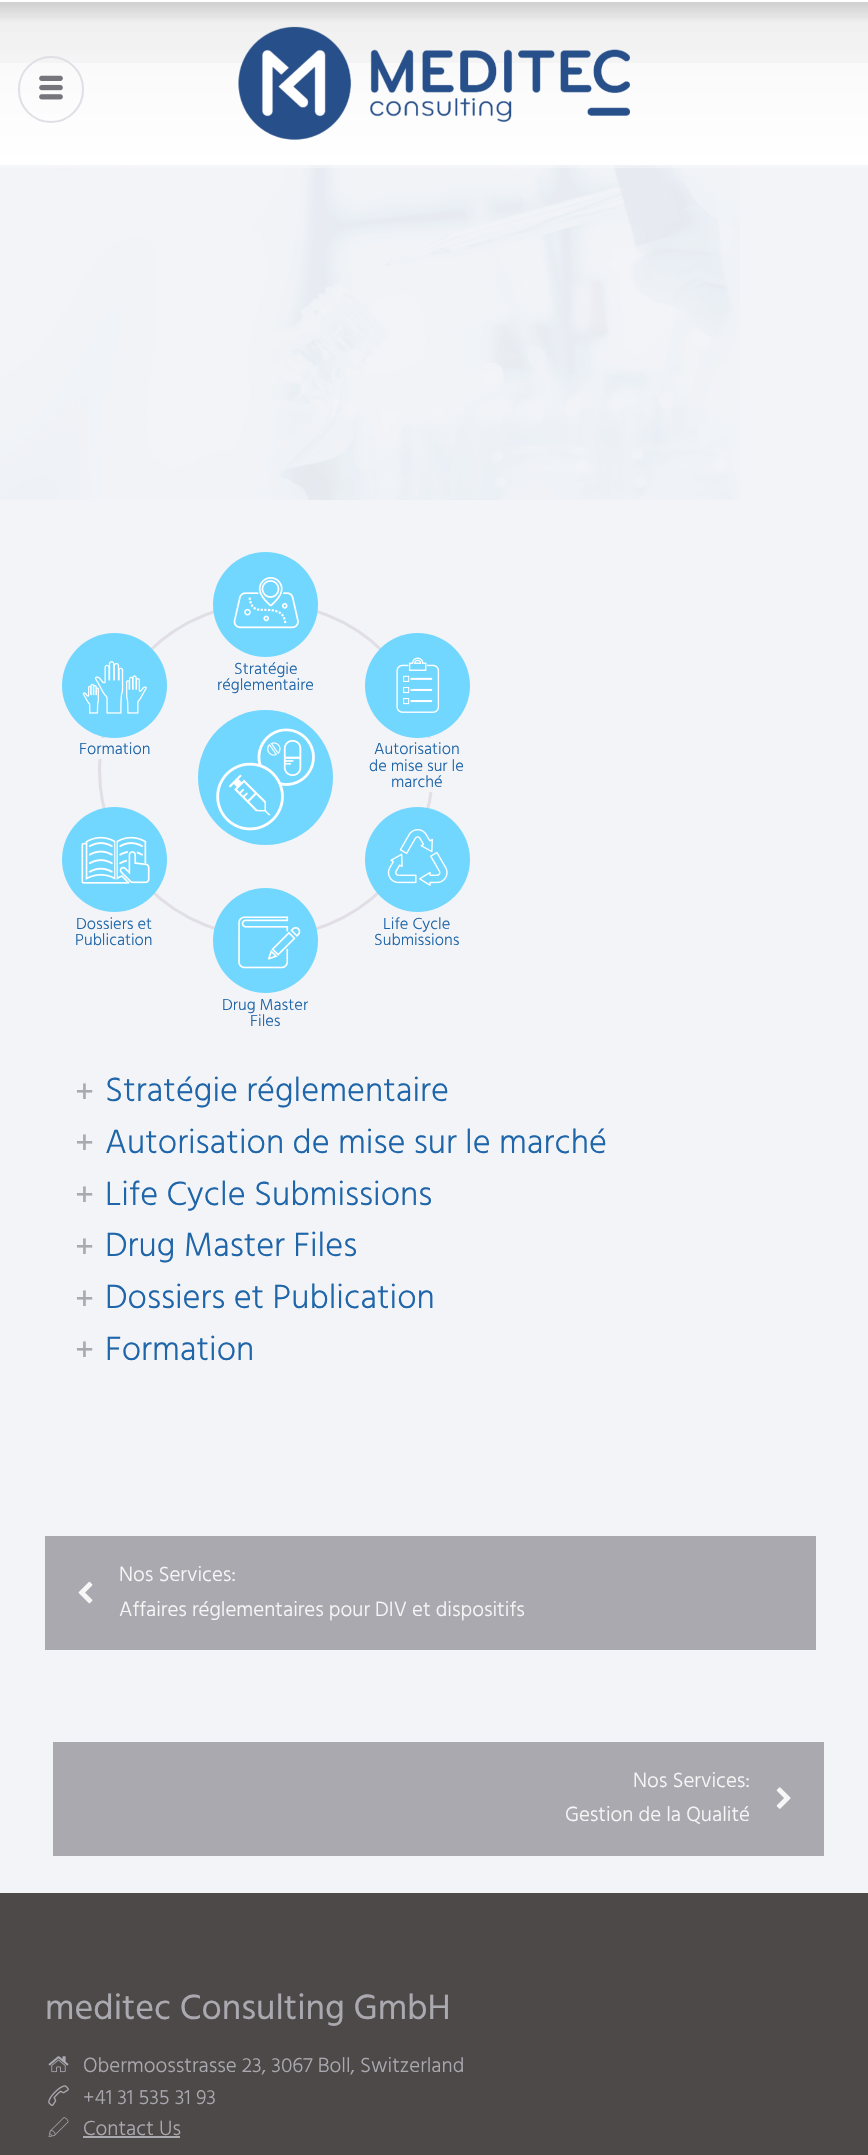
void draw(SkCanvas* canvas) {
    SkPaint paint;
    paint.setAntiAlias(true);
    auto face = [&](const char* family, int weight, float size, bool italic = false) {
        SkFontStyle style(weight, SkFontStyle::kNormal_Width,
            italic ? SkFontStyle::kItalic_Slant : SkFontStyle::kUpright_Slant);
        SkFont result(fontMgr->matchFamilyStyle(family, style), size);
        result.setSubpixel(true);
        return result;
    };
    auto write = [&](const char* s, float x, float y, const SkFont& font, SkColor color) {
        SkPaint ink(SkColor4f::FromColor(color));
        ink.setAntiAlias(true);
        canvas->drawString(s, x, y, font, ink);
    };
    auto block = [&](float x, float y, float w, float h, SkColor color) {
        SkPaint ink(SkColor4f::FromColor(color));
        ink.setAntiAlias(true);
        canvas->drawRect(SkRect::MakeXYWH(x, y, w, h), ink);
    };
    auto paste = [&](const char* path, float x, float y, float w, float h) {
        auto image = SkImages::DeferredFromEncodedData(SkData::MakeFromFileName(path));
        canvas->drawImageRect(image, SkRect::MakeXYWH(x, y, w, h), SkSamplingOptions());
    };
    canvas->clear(SkColorSetRGB(78, 73, 73));
    {
        const SkColor colors[] = {SK_ColorWHITE, SkColorSetRGB(230, 230, 230), SkColorSetRGB(248, 248, 248), SK_ColorWHITE};
        const float stops[] = {0.01f, 0.01f, 0.14f, 1};
        const SkPoint ends[] = {{434, 0}, {434, 165}};
        paint.setShader(SkGradientShader::MakeLinear(ends, colors, stops, 4, SkTileMode::kClamp));
        paint.setAlpha(255);
    }
    canvas->drawRect(SkRect::MakeXYWH(0, 0, 868, 165), paint);
    {
        const SkColor colors[] = {SkColorSetARGB(0, 0, 0, 0), SkColorSetARGB(26, 0, 0, 0), SkColorSetARGB(8, 0, 0, 0), SkColorSetARGB(0, 0, 0, 0)};
        const float stops[] = {0.01f, 0.01f, 0.14f, 1};
        const SkPoint ends[] = {{434, 0}, {434, 165}};
        paint.setShader(SkGradientShader::MakeLinear(ends, colors, stops, 4, SkTileMode::kClamp));
        paint.setAlpha(255);
    }
    canvas->drawRect(SkRect::MakeXYWH(0, 2, 868, 61), paint);
    paste("pic1.png", 238, 26, 392, 114);
    paint.setStyle(SkPaint::kStroke_Style);
    paint.setStrokeWidth(2);
    paint.setShader(nullptr);
    paint.setColor(SkColorSetRGB(225, 222, 229));
    canvas->drawRoundRect(SkRect::MakeXYWH(19, 57, 64, 65), 32, 32, paint);
    paste("pic2.png", 39, 75, 24, 25);
    block(0, 165, 868, 1728, SkColorSetRGB(243, 244, 247));
    paste("pic3.png", 0, 165, 740, 335);
    block(0, 165, 868, 3, SkColorSetARGB(77, 255, 255, 255));
    paint.setStrokeWidth(3);
    canvas->drawCircle(266, 770, 166.5f, paint);
    paint.setStyle(SkPaint::kFill_Style);
    paint.setColor(SkColorSetRGB(114, 215, 255));
    canvas->drawCircle(265.5f, 777.5f, 67.5f, paint);
    paste("pic4.png", 216, 728, 99, 103);
    canvas->drawCircle(265.5f, 604.5f, 52.5f, paint);
    paste("pic5.png", 233, 577, 66, 52);
    auto kFont1 = face("Hind", 300, 16.5f);
    write("Stratégie", 234, 674, kFont1, SkColorSetRGB(30, 101, 169));
    write("réglementaire", 217, 690, kFont1, SkColorSetRGB(30, 101, 169));
    canvas->drawCircle(114.5f, 685.5f, 52.5f, paint);
    paste("pic6.png", 82, 661, 65, 53);
    block(98, 738, 6, 21, SkColorSetRGB(243, 244, 247));
    write("Formation", 79, 754, kFont1, SkColorSetRGB(30, 101, 169));
    canvas->drawCircle(417.5f, 685.5f, 52.5f, paint);
    paste("pic7.png", 396, 657, 44, 56);
    block(428, 738, 6, 54, SkColorSetRGB(243, 244, 247));
    write("Autorisation", 374, 754, kFont1, SkColorSetRGB(30, 101, 169));
    write("de mise sur le", 369, 771, kFont1, SkColorSetRGB(30, 101, 169));
    write("marché", 391, 787, kFont1, SkColorSetRGB(30, 101, 169));
    canvas->drawCircle(114.5f, 859.5f, 52.5f, paint);
    paste("pic8.png", 81, 836, 69, 48);
    write("Dossiers et", 76, 929, kFont1, SkColorSetRGB(30, 101, 169));
    write("Publication", 75, 945, kFont1, SkColorSetRGB(30, 101, 169));
    canvas->drawCircle(417.5f, 859.5f, 52.5f, paint);
    paste("pic9.png", 387, 829, 61, 57);
    write("Life Cycle", 383, 929, kFont1, SkColorSetRGB(30, 101, 169));
    write("Submissions", 374, 945, kFont1, SkColorSetRGB(30, 101, 169));
    canvas->drawCircle(265.5f, 940.5f, 52.5f, paint);
    paste("pic10.png", 238, 916, 63, 53);
    write("Drug Master", 222, 1010, kFont1, SkColorSetRGB(30, 101, 169));
    write("Files", 250, 1026, kFont1, SkColorSetRGB(30, 101, 169));
    auto kFont2 = face("Hind", 400, 34.5f);
    write("+", 75, 1103, kFont2, SkColorSetRGB(170, 169, 176));
    auto kFont3 = face("Hind", 300, 34.5f);
    write("Stratégie réglementaire", 105, 1101, kFont3, SkColorSetRGB(30, 101, 169));
    write("+", 75, 1154, kFont2, SkColorSetRGB(170, 169, 176));
    write("Autorisation de mise sur le marché", 105, 1153, kFont3, SkColorSetRGB(30, 101, 169));
    write("+", 75, 1206, kFont2, SkColorSetRGB(170, 169, 176));
    write("Life Cycle Submissions", 105, 1205, kFont3, SkColorSetRGB(30, 101, 169));
    write("+", 75, 1258, kFont2, SkColorSetRGB(170, 169, 176));
    write("Drug Master Files", 105, 1256, kFont3, SkColorSetRGB(30, 101, 169));
    write("+", 75, 1310, kFont2, SkColorSetRGB(170, 169, 176));
    write("Dossiers et Publication", 105, 1308, kFont3, SkColorSetRGB(30, 101, 169));
    write("+", 75, 1361, kFont2, SkColorSetRGB(170, 169, 176));
    write("Formation", 105, 1360, kFont3, SkColorSetRGB(30, 101, 169));
    block(45, 1536, 771, 114, SkColorSetRGB(170, 169, 176));
    auto kFont4 = face("Hind", 300, 21);
    write("Nos Services:", 119, 1581, kFont4, SkColorSetRGB(247, 247, 247));
    paste("pic11.png", 78, 1581, 15, 23);
    write("Affaires réglementaires pour DIV et dispositifs", 119, 1616, kFont4, SkColorSetRGB(247, 247, 247));
    block(53, 1742, 771, 114, SkColorSetRGB(170, 169, 176));
    write("Nos Services:", 633, 1787, kFont4, SkColorSetRGB(247, 247, 247));
    paste("pic12.png", 776, 1787, 15, 22);
    write("Gestion de la Qualité", 565, 1821, kFont4, SkColorSetRGB(247, 247, 247));
    auto kFont5 = face("Hind", 400, 36);
    write("meditec Consulting GmbH", 45, 2019, kFont5, SkColorSetRGB(170, 169, 176));
    paste("pic13.png", 48, 2056, 21, 17);
    write("Obermoosstrasse 23, 3067 Boll, Switzerland", 83, 2072, kFont4, SkColorSetRGB(170, 169, 176));
    paste("pic14.png", 48, 2085, 21, 21);
    write("+41 31 535 31 93", 83, 2104, kFont4, SkColorSetRGB(170, 169, 176));
    paste("pic15.png", 48, 2117, 21, 20);
    write("Contact Us", 83, 2135, kFont4, SkColorSetRGB(170, 169, 176));
    block(83, 2136, 97, 2, SkColorSetRGB(170, 169, 176));
}
